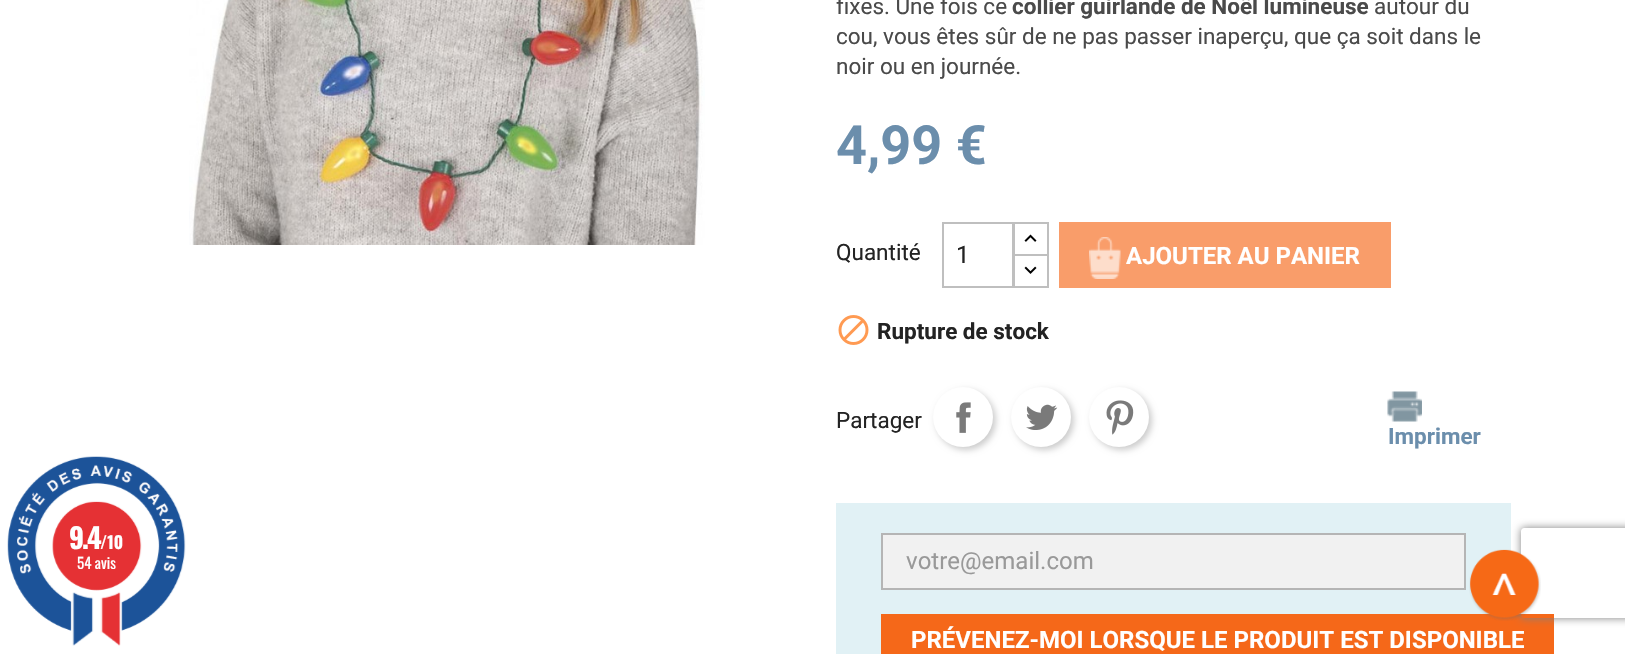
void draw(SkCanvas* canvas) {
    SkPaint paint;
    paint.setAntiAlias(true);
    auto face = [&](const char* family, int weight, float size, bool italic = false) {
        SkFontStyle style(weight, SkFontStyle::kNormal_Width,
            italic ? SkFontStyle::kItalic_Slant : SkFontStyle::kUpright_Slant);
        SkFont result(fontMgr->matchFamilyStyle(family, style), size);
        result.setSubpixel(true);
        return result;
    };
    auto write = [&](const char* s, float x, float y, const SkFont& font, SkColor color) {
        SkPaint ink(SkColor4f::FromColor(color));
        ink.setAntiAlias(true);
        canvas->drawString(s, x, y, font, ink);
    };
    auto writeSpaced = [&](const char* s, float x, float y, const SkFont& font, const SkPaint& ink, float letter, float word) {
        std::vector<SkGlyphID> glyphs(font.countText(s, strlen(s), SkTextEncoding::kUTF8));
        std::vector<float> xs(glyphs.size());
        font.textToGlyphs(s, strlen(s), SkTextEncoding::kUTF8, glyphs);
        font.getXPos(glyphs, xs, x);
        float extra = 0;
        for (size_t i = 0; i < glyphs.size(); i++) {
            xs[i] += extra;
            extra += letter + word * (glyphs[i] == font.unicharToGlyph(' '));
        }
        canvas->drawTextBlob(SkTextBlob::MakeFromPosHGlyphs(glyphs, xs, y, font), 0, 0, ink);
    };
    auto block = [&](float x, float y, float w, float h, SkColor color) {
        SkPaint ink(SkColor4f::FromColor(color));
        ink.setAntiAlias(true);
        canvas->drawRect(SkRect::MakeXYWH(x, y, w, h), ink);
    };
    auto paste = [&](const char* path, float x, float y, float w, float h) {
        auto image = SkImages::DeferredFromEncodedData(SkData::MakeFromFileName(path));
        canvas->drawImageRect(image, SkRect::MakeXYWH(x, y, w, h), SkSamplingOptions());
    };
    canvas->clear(SK_ColorWHITE);
    paste("pic1.png", 7, 456, 179, 190);
    auto kFont1 = face("Oswald", 700, 28);
    paint.setColor(SK_ColorWHITE);
    writeSpaced("9.4", 69, 549, kFont1, paint, -2, 0);
    auto kFont2 = face("Oswald", 700, 17);
    write("/10", 100, 549, kFont2, SK_ColorWHITE);
    auto kFont3 = face("Oswald", 400, 15);
    write("54 avis", 77, 569, kFont3, SK_ColorWHITE);
    paste("pic2.png", 189, 0, 516, 245);
    auto kFont4 = face("Roboto", 400, 22.5f);
    write("fixes. Une fois ce", 836, 14, kFont4, SkColorSetRGB(74, 74, 74));
    auto kFont5 = face("Roboto", 700, 22.5f);
    write("collier guirlande de Noël lumineuse", 1012, 14, kFont5, SkColorSetRGB(74, 74, 74));
    write("autour du", 1374, 14, kFont4, SkColorSetRGB(74, 74, 74));
    write("cou, vous êtes sûr de ne pas passer inaperçu, que ça soit dans le", 836, 44, kFont4, SkColorSetRGB(74, 74, 74));
    write("noir ou en journée.", 836, 74, kFont4, SkColorSetRGB(74, 74, 74));
    auto kFont6 = face("Roboto", 700, 54);
    write("4,99 €", 836, 164, kFont6, SkColorSetRGB(107, 142, 172));
    write("Quantité", 836, 260, kFont4, SkColorSetRGB(35, 35, 35));
    paint.setStyle(SkPaint::kStroke_Style);
    paint.setStrokeWidth(2);
    paint.setColor(SkColorSetRGB(191, 191, 191));
    canvas->drawRect(SkRect::MakeXYWH(1014, 223, 34, 33), paint);
    block(1015, 256, 32, 1, SK_ColorWHITE);
    canvas->drawRect(SkRect::MakeXYWH(1014, 255, 34, 32), paint);
    canvas->drawRect(SkRect::MakeXYWH(943, 223, 70, 64), paint);
    auto kFont7 = face("Roboto", 400, 24);
    write("1", 956, 263, kFont7, SkColorSetRGB(35, 35, 35));
    paste("pic3.png", 1024, 234, 13, 8);
    paste("pic4.png", 1024, 266, 13, 8);
    block(1059, 222, 332, 66, SkColorSetRGB(249, 157, 106));
    paste("pic5.png", 1089, 237, 32, 42);
    auto kFont8 = face("Roboto", 700, 24);
    write("AJOUTER AU PANIER", 1126, 264, kFont8, SK_ColorWHITE);
    paste("pic6.png", 838, 315, 31, 30);
    write("Rupture de stock", 877, 339, kFont5, SkColorSetRGB(35, 35, 35));
    write("Partager", 836, 428, kFont4, SkColorSetRGB(35, 35, 35));
    paint.setStyle(SkPaint::kFill_Style);
    paint.setColor(SkColorSetARGB(51, 0, 0, 0));
    paint.setMaskFilter(SkMaskFilter::MakeBlur(kNormal_SkBlurStyle, 3));
    canvas->drawRoundRect(SkRect::MakeXYWH(936, 390, 60, 60), 30, 30, paint);
    paint.setMaskFilter(nullptr);
    paint.setColor(SK_ColorWHITE);
    canvas->drawCircle(963, 417, 30, paint);
    paste("pic7.png", 956, 402, 15, 31);
    paint.setColor(SkColorSetARGB(51, 0, 0, 0));
    paint.setMaskFilter(SkMaskFilter::MakeBlur(kNormal_SkBlurStyle, 3));
    canvas->drawRoundRect(SkRect::MakeXYWH(1014, 390, 60, 60), 30, 30, paint);
    paint.setMaskFilter(nullptr);
    paint.setColor(SK_ColorWHITE);
    canvas->drawCircle(1041, 417, 30, paint);
    paste("pic8.png", 1026, 404, 32, 26);
    paint.setColor(SkColorSetARGB(51, 0, 0, 0));
    paint.setMaskFilter(SkMaskFilter::MakeBlur(kNormal_SkBlurStyle, 3));
    canvas->drawRoundRect(SkRect::MakeXYWH(1092, 390, 60, 60), 30, 30, paint);
    paint.setMaskFilter(nullptr);
    paint.setColor(SK_ColorWHITE);
    canvas->drawCircle(1119, 417, 30, paint);
    paste("pic9.png", 1106, 400, 28, 35);
    paste("pic10.png", 1387, 391, 35, 31);
    write("Imprimer", 1388, 444, kFont5, SkColorSetRGB(107, 142, 172));
    block(836, 503, 675, 151, SkColorSetRGB(225, 241, 245));
    paint.setColor(SkColorSetRGB(241, 241, 241));
    canvas->drawRect(SkRect::MakeXYWH(882, 534, 583, 55), paint);
    paint.setStyle(SkPaint::kStroke_Style);
    paint.setColor(SkColorSetRGB(181, 181, 181));
    canvas->drawRect(SkRect::MakeXYWH(882, 534, 583, 55), paint);
    write("votre@email.com", 906, 569, kFont7, SkColorSetRGB(153, 153, 153));
    block(881, 614, 673, 40, SkColorSetRGB(245, 104, 25));
    write("PRÉVENEZ-MOI LORSQUE LE PRODUIT EST DISPONIBLE", 911, 648, kFont8, SK_ColorWHITE);
    canvas->save();
    canvas->clipPath(SkPathBuilder(SkPathFillType::kEvenOdd).moveTo(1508, 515).lineTo(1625, 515).lineTo(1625, 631).lineTo(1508, 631).close().moveTo(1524, 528).lineTo(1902, 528).cubicTo(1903.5f, 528, 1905, 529.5f, 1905, 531).lineTo(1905, 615).cubicTo(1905, 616.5f, 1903.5f, 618, 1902, 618).lineTo(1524, 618).cubicTo(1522.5f, 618, 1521, 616.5f, 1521, 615).lineTo(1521, 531).cubicTo(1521, 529.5f, 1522.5f, 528, 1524, 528).close().detach(), true);
    paint.setStyle(SkPaint::kFill_Style);
    paint.setColor(SkColorSetRGB(128, 128, 128));
    paint.setMaskFilter(SkMaskFilter::MakeBlur(kNormal_SkBlurStyle, 4));
    canvas->drawRoundRect(SkRect::MakeXYWH(1521, 528, 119, 90), 3, 3, paint);
    paint.setMaskFilter(nullptr);
    canvas->restore();
    paste("pic11.png", 1469, 549, 72, 72);
}
